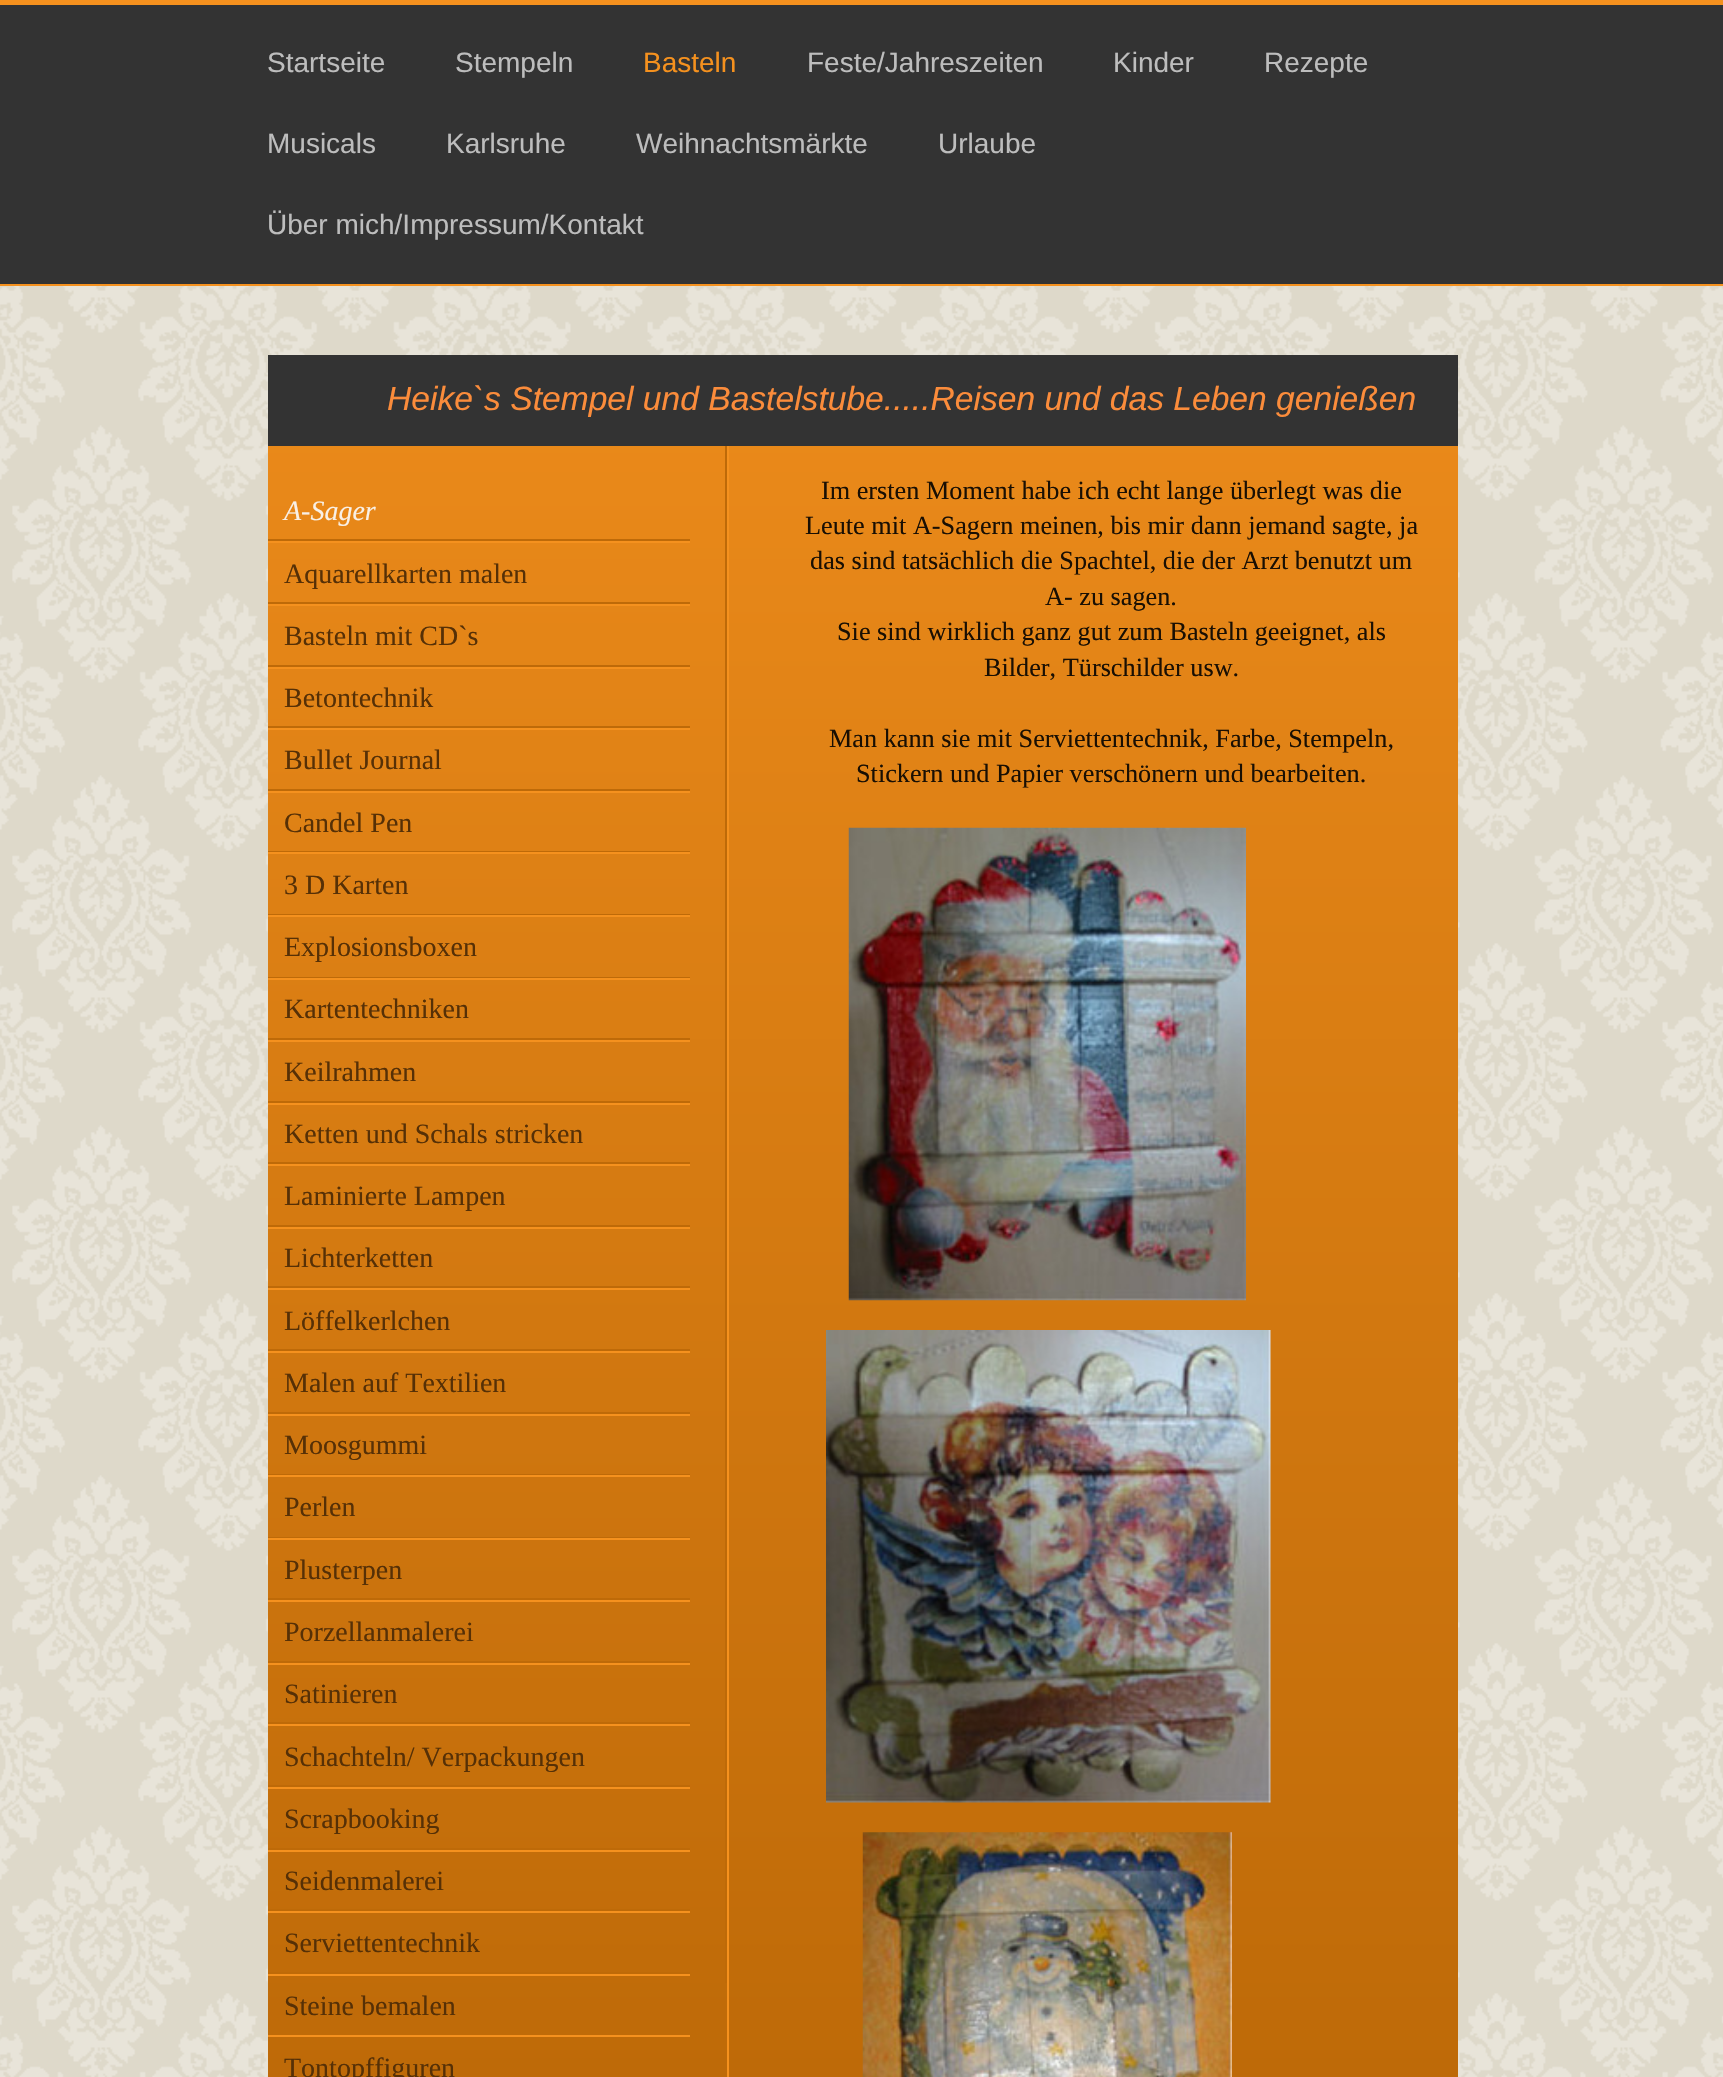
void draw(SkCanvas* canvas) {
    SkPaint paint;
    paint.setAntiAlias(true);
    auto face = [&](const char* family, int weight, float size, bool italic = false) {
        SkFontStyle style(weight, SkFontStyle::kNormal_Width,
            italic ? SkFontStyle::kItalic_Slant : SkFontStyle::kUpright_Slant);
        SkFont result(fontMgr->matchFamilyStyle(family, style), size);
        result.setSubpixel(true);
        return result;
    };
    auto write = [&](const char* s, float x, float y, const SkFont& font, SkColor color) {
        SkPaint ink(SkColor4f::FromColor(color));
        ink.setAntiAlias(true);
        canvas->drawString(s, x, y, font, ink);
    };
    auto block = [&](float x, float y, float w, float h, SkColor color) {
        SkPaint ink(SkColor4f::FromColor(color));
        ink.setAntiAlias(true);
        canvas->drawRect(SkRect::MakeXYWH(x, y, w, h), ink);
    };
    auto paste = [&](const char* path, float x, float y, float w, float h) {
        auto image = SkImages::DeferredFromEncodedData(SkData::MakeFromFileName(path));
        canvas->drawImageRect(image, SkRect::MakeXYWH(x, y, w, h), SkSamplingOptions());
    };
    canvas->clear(SK_ColorWHITE);
    paste("pic1.png", 0, 286, 1723, 1791);
    block(0, 0, 1723, 5, SkColorSetRGB(245, 145, 30));
    block(0, 284, 1723, 2, SkColorSetRGB(245, 145, 30));
    block(0, 5, 1723, 279, SkColorSetRGB(51, 51, 51));
    auto kFont1 = face("Liberation Sans", 400, 28);
    write("Startseite", 267, 72, kFont1, SkColorSetRGB(189, 189, 189));
    write("Stempeln", 455, 72, kFont1, SkColorSetRGB(189, 189, 189));
    write("Basteln", 643, 72, kFont1, SkColorSetRGB(245, 145, 30));
    write("Feste/Jahreszeiten", 807, 72, kFont1, SkColorSetRGB(189, 189, 189));
    write("Kinder", 1113, 72, kFont1, SkColorSetRGB(189, 189, 189));
    write("Rezepte", 1264, 72, kFont1, SkColorSetRGB(189, 189, 189));
    write("Musicals", 267, 153, kFont1, SkColorSetRGB(189, 189, 189));
    write("Karlsruhe", 446, 153, kFont1, SkColorSetRGB(189, 189, 189));
    write("Weihnachtsmärkte", 636, 153, kFont1, SkColorSetRGB(189, 189, 189));
    write("Urlaube", 938, 153, kFont1, SkColorSetRGB(189, 189, 189));
    write("Über mich/Impressum/Kontakt", 267, 234, kFont1, SkColorSetRGB(189, 189, 189));
    block(268, 355, 1190, 91, SkColorSetRGB(51, 51, 51));
    auto kFont2 = face("Liberation Sans", 400, 33.6f, true);
    write("Heike`s Stempel und Bastelstube.....Reisen und das Leben genießen", 387, 410, kFont2, SkColorSetRGB(251, 140, 59));
    {
        const SkColor colors[] = {SkColorSetRGB(245, 145, 30), SkColorSetRGB(190, 106, 8)};
        const float stops[] = {0, 1};
        const SkPoint ends[] = {{862, 0}, {862, 2077}};
        paint.setShader(SkGradientShader::MakeLinear(ends, colors, stops, 2, SkTileMode::kClamp));
        paint.setAlpha(255);
    }
    canvas->drawRect(SkRect::MakeXYWH(268, 446, 1190, 1631), paint);
    block(268, 539, 422, 2, SkColorSetRGB(190, 106, 8));
    auto kFont3 = face("Liberation Serif", 400, 28, true);
    write("A-Sager", 284, 520, kFont3, SkColorSetRGB(249, 240, 230));
    block(268, 541, 422, 2, SkColorSetRGB(245, 145, 30));
    block(268, 602, 422, 2, SkColorSetRGB(190, 106, 8));
    auto kFont4 = face("Liberation Serif", 400, 28);
    write("Aquarellkarten malen", 284, 583, kFont4, SkColorSetRGB(86, 48, 6));
    block(268, 604, 422, 2, SkColorSetRGB(245, 145, 30));
    block(268, 665, 422, 2, SkColorSetRGB(190, 106, 8));
    write("Basteln mit CD`s", 284, 645, kFont4, SkColorSetRGB(86, 48, 6));
    block(268, 667, 422, 2, SkColorSetRGB(245, 145, 30));
    block(268, 726, 422, 2, SkColorSetRGB(190, 106, 8));
    write("Betontechnik", 284, 707, kFont4, SkColorSetRGB(86, 48, 6));
    block(268, 728, 422, 2, SkColorSetRGB(245, 145, 30));
    block(268, 789, 422, 2, SkColorSetRGB(190, 106, 8));
    write("Bullet Journal", 284, 769, kFont4, SkColorSetRGB(86, 48, 6));
    block(268, 791, 422, 2, SkColorSetRGB(245, 145, 30));
    block(268, 851, 422, 1, SkColorSetRGB(190, 106, 8));
    write("Candel Pen", 284, 832, kFont4, SkColorSetRGB(86, 48, 6));
    block(268, 852, 422, 2, SkColorSetRGB(245, 145, 30));
    block(268, 914, 422, 1, SkColorSetRGB(190, 106, 8));
    write("3 D Karten", 284, 894, kFont4, SkColorSetRGB(86, 48, 6));
    block(268, 915, 422, 2, SkColorSetRGB(245, 145, 30));
    block(268, 977, 422, 1, SkColorSetRGB(190, 106, 8));
    write("Explosionsboxen", 284, 956, kFont4, SkColorSetRGB(86, 48, 6));
    block(268, 978, 422, 2, SkColorSetRGB(245, 145, 30));
    block(268, 1038, 422, 2, SkColorSetRGB(190, 106, 8));
    write("Kartentechniken", 284, 1018, kFont4, SkColorSetRGB(86, 48, 6));
    block(268, 1040, 422, 2, SkColorSetRGB(245, 145, 30));
    block(268, 1101, 422, 2, SkColorSetRGB(190, 106, 8));
    write("Keilrahmen", 284, 1081, kFont4, SkColorSetRGB(86, 48, 6));
    block(268, 1103, 422, 2, SkColorSetRGB(245, 145, 30));
    block(268, 1162, 422, 2, SkColorSetRGB(190, 106, 8));
    write("Ketten und Schals stricken", 284, 1143, kFont4, SkColorSetRGB(86, 48, 6));
    block(268, 1164, 422, 2, SkColorSetRGB(245, 145, 30));
    block(268, 1225, 422, 2, SkColorSetRGB(190, 106, 8));
    write("Laminierte Lampen", 284, 1205, kFont4, SkColorSetRGB(86, 48, 6));
    block(268, 1227, 422, 2, SkColorSetRGB(245, 145, 30));
    block(268, 1286, 422, 2, SkColorSetRGB(190, 106, 8));
    write("Lichterketten", 284, 1267, kFont4, SkColorSetRGB(86, 48, 6));
    block(268, 1288, 422, 2, SkColorSetRGB(245, 145, 30));
    block(268, 1349, 422, 2, SkColorSetRGB(190, 106, 8));
    write("Löffelkerlchen", 284, 1330, kFont4, SkColorSetRGB(86, 48, 6));
    block(268, 1351, 422, 2, SkColorSetRGB(245, 145, 30));
    block(268, 1412, 422, 2, SkColorSetRGB(190, 106, 8));
    write("Malen auf Textilien", 284, 1392, kFont4, SkColorSetRGB(86, 48, 6));
    block(268, 1414, 422, 2, SkColorSetRGB(245, 145, 30));
    block(268, 1474, 422, 1, SkColorSetRGB(190, 106, 8));
    write("Moosgummi", 284, 1454, kFont4, SkColorSetRGB(86, 48, 6));
    block(268, 1475, 422, 2, SkColorSetRGB(245, 145, 30));
    block(268, 1537, 422, 1, SkColorSetRGB(190, 106, 8));
    write("Perlen", 284, 1516, kFont4, SkColorSetRGB(86, 48, 6));
    block(268, 1538, 422, 2, SkColorSetRGB(245, 145, 30));
    block(268, 1598, 422, 2, SkColorSetRGB(190, 106, 8));
    write("Plusterpen", 284, 1579, kFont4, SkColorSetRGB(86, 48, 6));
    block(268, 1600, 422, 2, SkColorSetRGB(245, 145, 30));
    block(268, 1661, 422, 2, SkColorSetRGB(190, 106, 8));
    write("Porzellanmalerei", 284, 1641, kFont4, SkColorSetRGB(86, 48, 6));
    block(268, 1663, 422, 2, SkColorSetRGB(245, 145, 30));
    block(268, 1722, 422, 2, SkColorSetRGB(190, 106, 8));
    write("Satinieren", 284, 1703, kFont4, SkColorSetRGB(86, 48, 6));
    block(268, 1724, 422, 2, SkColorSetRGB(245, 145, 30));
    block(268, 1785, 422, 2, SkColorSetRGB(190, 106, 8));
    write("Schachteln/ Verpackungen", 284, 1766, kFont4, SkColorSetRGB(86, 48, 6));
    block(268, 1787, 422, 2, SkColorSetRGB(245, 145, 30));
    block(268, 1848, 422, 2, SkColorSetRGB(190, 106, 8));
    write("Scrapbooking", 284, 1828, kFont4, SkColorSetRGB(86, 48, 6));
    block(268, 1850, 422, 2, SkColorSetRGB(245, 145, 30));
    block(268, 1909, 422, 2, SkColorSetRGB(190, 106, 8));
    write("Seidenmalerei", 284, 1890, kFont4, SkColorSetRGB(86, 48, 6));
    block(268, 1911, 422, 2, SkColorSetRGB(245, 145, 30));
    block(268, 1972, 422, 2, SkColorSetRGB(190, 106, 8));
    write("Serviettentechnik", 284, 1952, kFont4, SkColorSetRGB(86, 48, 6));
    block(268, 1974, 422, 2, SkColorSetRGB(245, 145, 30));
    write("Steine bemalen", 284, 2015, kFont4, SkColorSetRGB(86, 48, 6));
    block(268, 2035, 422, 2, SkColorSetRGB(245, 145, 30));
    write("Tontopffiguren", 284, 2077, kFont4, SkColorSetRGB(86, 48, 6));
    block(727, 446, 2, 1631, SkColorSetRGB(245, 145, 30));
    block(725, 446, 2, 1537, SkColorSetRGB(190, 106, 8));
    auto kFont5 = face("Liberation Serif", 400, 26.25f);
    write("Im ersten Moment habe ich echt lange überlegt was die", 821, 499, kFont5, SkColorSetRGB(25, 15, 3));
    write("Leute mit A-Sagern meinen, bis mir dann jemand sagte, ja", 805, 534, kFont5, SkColorSetRGB(25, 15, 3));
    write("das sind tatsächlich die Spachtel, die der Arzt benutzt um", 810, 569, kFont5, SkColorSetRGB(25, 15, 3));
    write("A- zu sagen.", 1045, 605, kFont5, SkColorSetRGB(25, 15, 3));
    write("Sie sind wirklich ganz gut zum Basteln geeignet, als", 837, 640, kFont5, SkColorSetRGB(25, 15, 3));
    write("Bilder, Türschilder usw.", 984, 676, kFont5, SkColorSetRGB(25, 15, 3));
    write("Man kann sie mit Serviettentechnik, Farbe, Stempeln,", 829, 747, kFont5, SkColorSetRGB(25, 15, 3));
    write("Stickern und Papier verschönern und bearbeiten.", 856, 782, kFont5, SkColorSetRGB(25, 15, 3));
    paste("pic2.png", 848, 827, 398, 474);
    paste("pic3.png", 826, 1330, 445, 473);
    paste("pic4.png", 862, 1832, 370, 245);
}
